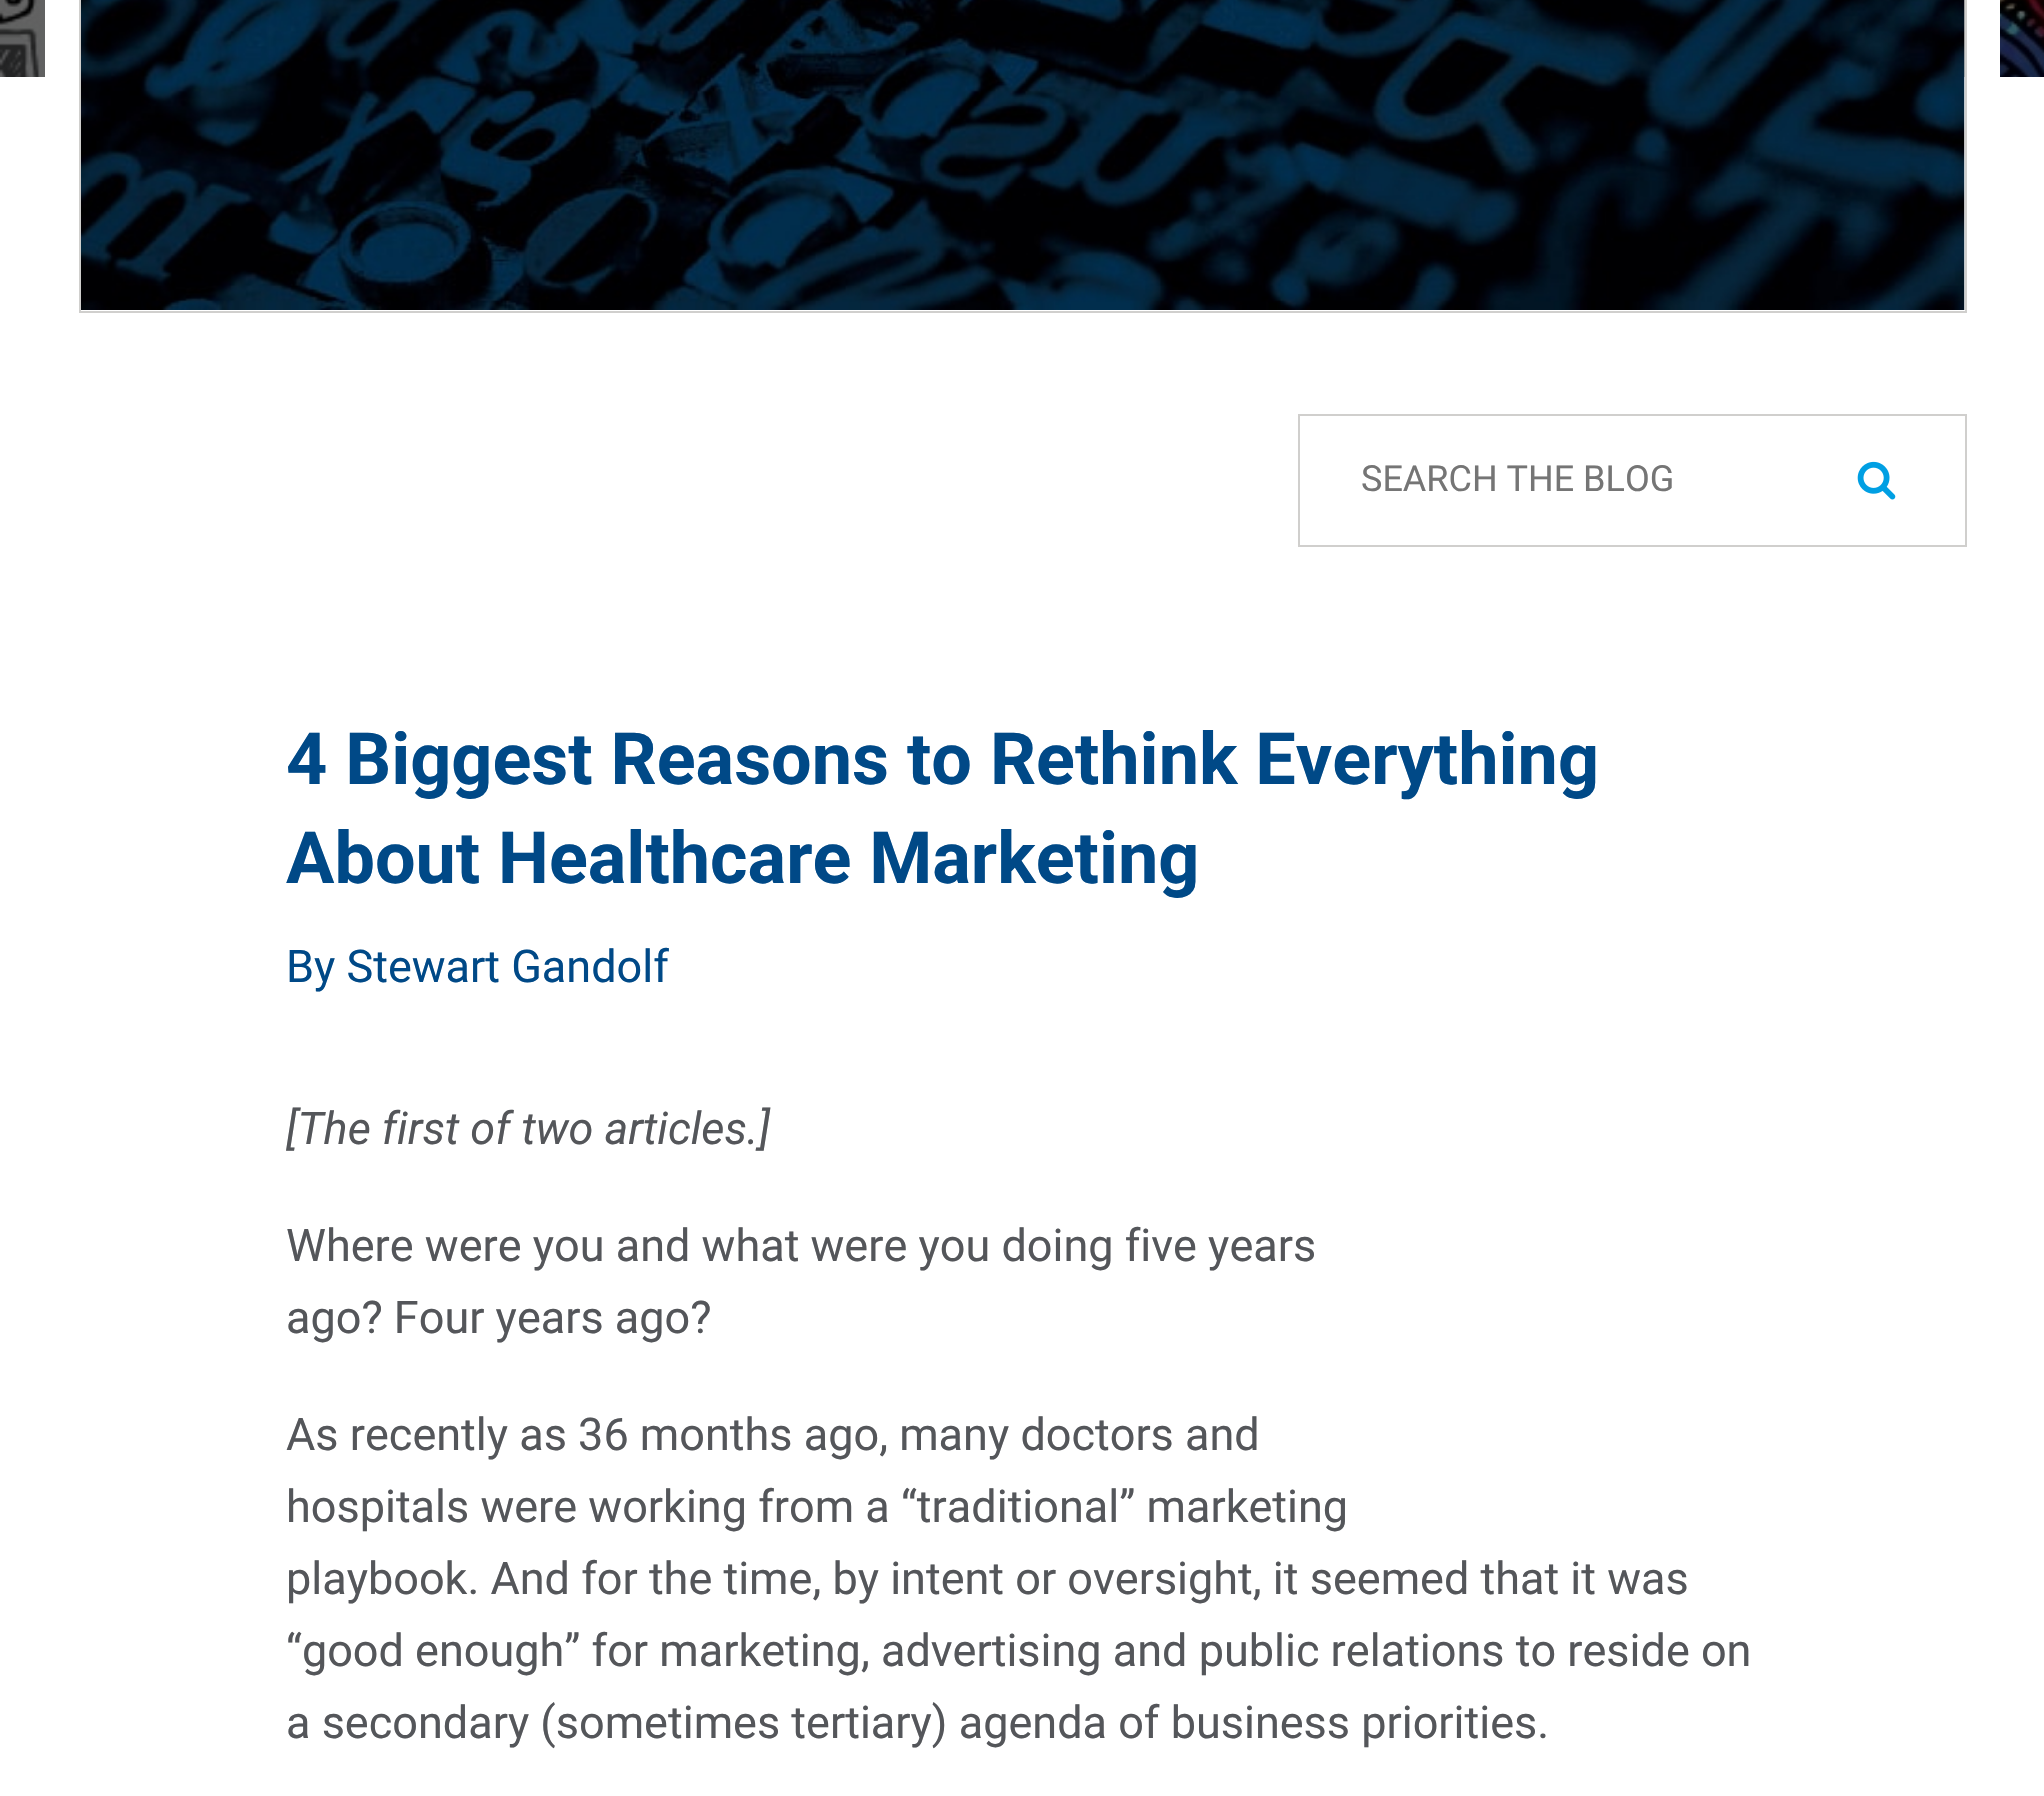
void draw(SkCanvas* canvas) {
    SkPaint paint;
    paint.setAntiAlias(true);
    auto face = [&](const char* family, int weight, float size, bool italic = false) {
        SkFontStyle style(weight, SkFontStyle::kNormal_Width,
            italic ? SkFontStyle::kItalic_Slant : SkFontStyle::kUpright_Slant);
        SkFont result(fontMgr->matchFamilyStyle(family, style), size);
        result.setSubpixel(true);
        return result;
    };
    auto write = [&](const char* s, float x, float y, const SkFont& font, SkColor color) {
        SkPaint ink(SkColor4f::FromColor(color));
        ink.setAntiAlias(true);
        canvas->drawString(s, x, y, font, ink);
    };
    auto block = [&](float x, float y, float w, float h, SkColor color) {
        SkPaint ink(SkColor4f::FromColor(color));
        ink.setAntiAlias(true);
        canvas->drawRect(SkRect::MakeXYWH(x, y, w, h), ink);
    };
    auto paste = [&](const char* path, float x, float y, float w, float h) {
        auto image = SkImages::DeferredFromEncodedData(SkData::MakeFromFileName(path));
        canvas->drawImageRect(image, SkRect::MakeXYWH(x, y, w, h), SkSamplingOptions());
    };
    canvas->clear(SK_ColorWHITE);
    paste("pic1.png", 0, 0, 2044, 77);
    paint.setStyle(SkPaint::kStroke_Style);
    paint.setStrokeWidth(34);
    paint.setColor(SK_ColorWHITE);
    canvas->drawRect(SkRect::MakeXYWH(62, -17, 1921, 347), paint);
    block(1964, 0, 1, 77, SkColorSetRGB(208, 207, 205));
    paint.setStrokeWidth(2);
    paint.setColor(SkColorSetRGB(208, 207, 205));
    canvas->drawRect(SkRect::MakeXYWH(80, -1, 1886, 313), paint);
    paste("pic2.png", 81, 0, 1884, 310);
    canvas->drawRect(SkRect::MakeXYWH(1299, 415, 667, 131), paint);
    auto kFont1 = face("Roboto", 400, 36);
    write("SEARCH THE BLOG", 1361, 491, kFont1, SkColorSetRGB(117, 117, 117));
    paste("pic3.png", 1857, 461, 39, 39);
    auto kFont2 = face("Roboto", 700, 72);
    write("4 Biggest Reasons to Rethink Everything", 286, 784, kFont2, SkColorSetRGB(0, 73, 135));
    write("About Healthcare Marketing", 286, 883, kFont2, SkColorSetRGB(0, 73, 135));
    auto kFont3 = face("Roboto", 400, 45);
    write("By Stewart Gandolf", 286, 982, kFont3, SkColorSetRGB(0, 73, 135));
    auto kFont4 = face("Roboto", 400, 45, true);
    write("[The first of two articles.]", 286, 1144, kFont4, SkColorSetRGB(84, 86, 90));
    write("Where were you and what were you doing five years", 286, 1261, kFont3, SkColorSetRGB(84, 86, 90));
    write("ago? Four years ago?", 286, 1333, kFont3, SkColorSetRGB(84, 86, 90));
    write("As recently as 36 months ago, many doctors and", 286, 1450, kFont3, SkColorSetRGB(84, 86, 90));
    write("hospitals were working from a “traditional” marketing", 286, 1522, kFont3, SkColorSetRGB(84, 86, 90));
    write("playbook. And for the time, by intent or oversight, it seemed that it was", 286, 1594, kFont3, SkColorSetRGB(84, 86, 90));
    write("“good enough” for marketing, advertising and public relations to reside on", 286, 1666, kFont3, SkColorSetRGB(84, 86, 90));
    write("a secondary (sometimes tertiary) agenda of business priorities.", 286, 1738, kFont3, SkColorSetRGB(84, 86, 90));
}
